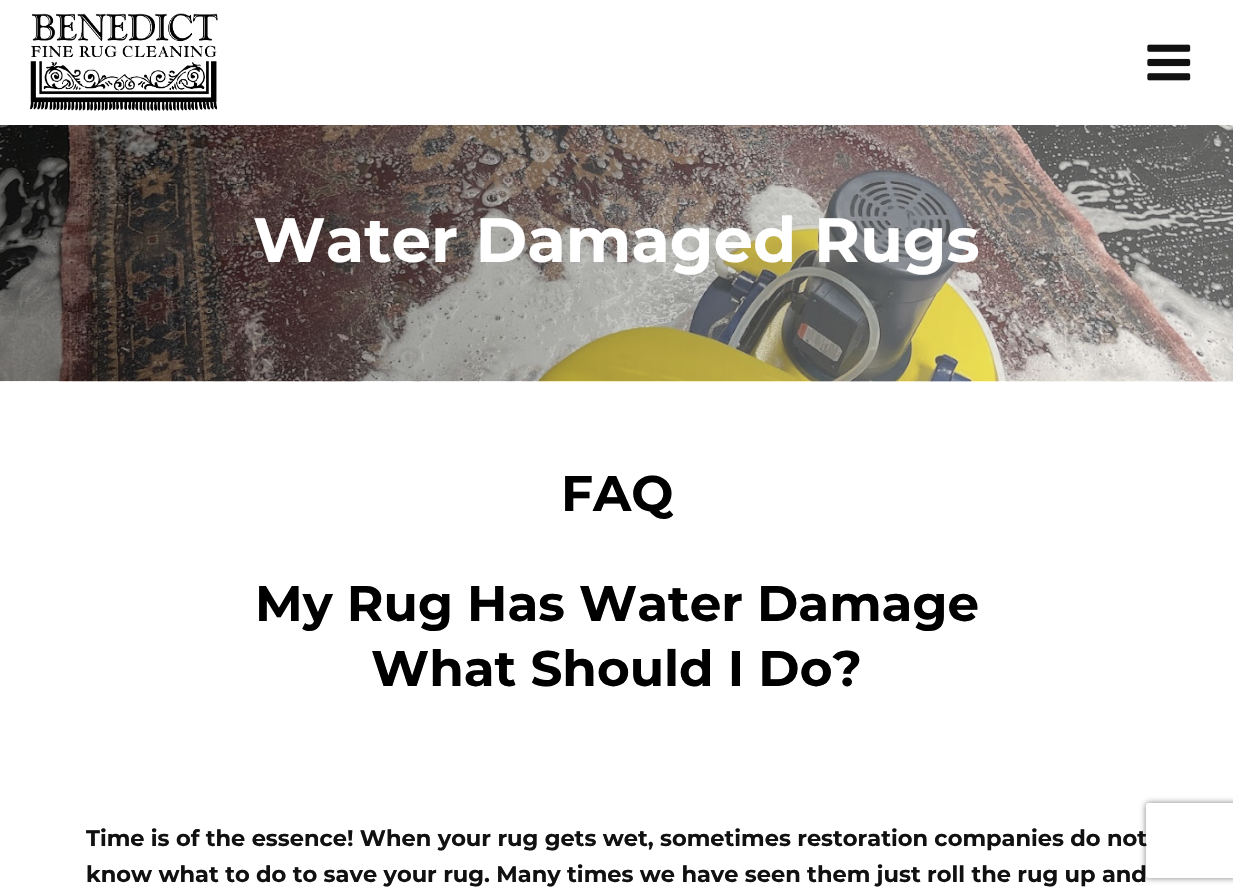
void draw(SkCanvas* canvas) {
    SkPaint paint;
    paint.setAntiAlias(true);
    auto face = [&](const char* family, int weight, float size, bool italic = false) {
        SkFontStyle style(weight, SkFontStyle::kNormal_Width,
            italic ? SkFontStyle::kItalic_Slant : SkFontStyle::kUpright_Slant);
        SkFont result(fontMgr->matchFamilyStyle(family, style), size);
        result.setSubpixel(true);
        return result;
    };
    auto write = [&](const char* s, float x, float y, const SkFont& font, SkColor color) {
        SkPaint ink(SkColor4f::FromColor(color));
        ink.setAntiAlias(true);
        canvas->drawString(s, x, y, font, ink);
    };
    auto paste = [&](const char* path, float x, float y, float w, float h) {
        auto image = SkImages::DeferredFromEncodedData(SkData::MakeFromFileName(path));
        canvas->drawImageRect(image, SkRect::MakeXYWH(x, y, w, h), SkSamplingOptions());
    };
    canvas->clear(SK_ColorWHITE);
    paste("pic1.png", 30, 13, 188, 98);
    paste("pic2.png", 1147, 44, 44, 37);
    paste("pic3.png", 0, 125, 1233, 257);
    auto kFont1 = face("Montserrat", 700, 62.5f);
    write("Water Damaged Rugs", 253, 262, kFont1, SK_ColorWHITE);
    auto kFont2 = face("Montserrat", 700, 50);
    write("FAQ", 561, 511, kFont2, SK_ColorBLACK);
    write("My Rug Has Water Damage", 255, 621, kFont2, SK_ColorBLACK);
    write("What Should I Do?", 371, 686, kFont2, SK_ColorBLACK);
    canvas->save();
    canvas->clipPath(SkPathBuilder(SkPathFillType::kEvenOdd).moveTo(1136, 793).lineTo(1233, 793).lineTo(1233, 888).lineTo(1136, 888).close().moveTo(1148.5f, 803).lineTo(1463.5f, 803).cubicTo(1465, 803, 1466, 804, 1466, 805.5f).lineTo(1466, 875.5f).cubicTo(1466, 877, 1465, 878, 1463.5f, 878).lineTo(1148.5f, 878).cubicTo(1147, 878, 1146, 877, 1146, 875.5f).lineTo(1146, 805.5f).cubicTo(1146, 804, 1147, 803, 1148.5f, 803).close().detach(), true);
    paint.setColor(SkColorSetRGB(128, 128, 128));
    paint.setMaskFilter(SkMaskFilter::MakeBlur(kNormal_SkBlurStyle, 3));
    canvas->drawRoundRect(SkRect::MakeXYWH(1146, 803, 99, 75), 2.5f, 2.5f, paint);
    paint.setMaskFilter(nullptr);
    canvas->restore();
    auto kFont3 = face("Montserrat", 700, 22.5f);
    write("Time is of the essence! When your rug gets wet, sometimes restoration companies do not", 86, 846, kFont3, SkColorSetRGB(17, 17, 17));
    write("know what to do to save your rug. Many times we have seen them just roll the rug up and", 86, 882, kFont3, SkColorSetRGB(17, 17, 17));
}
